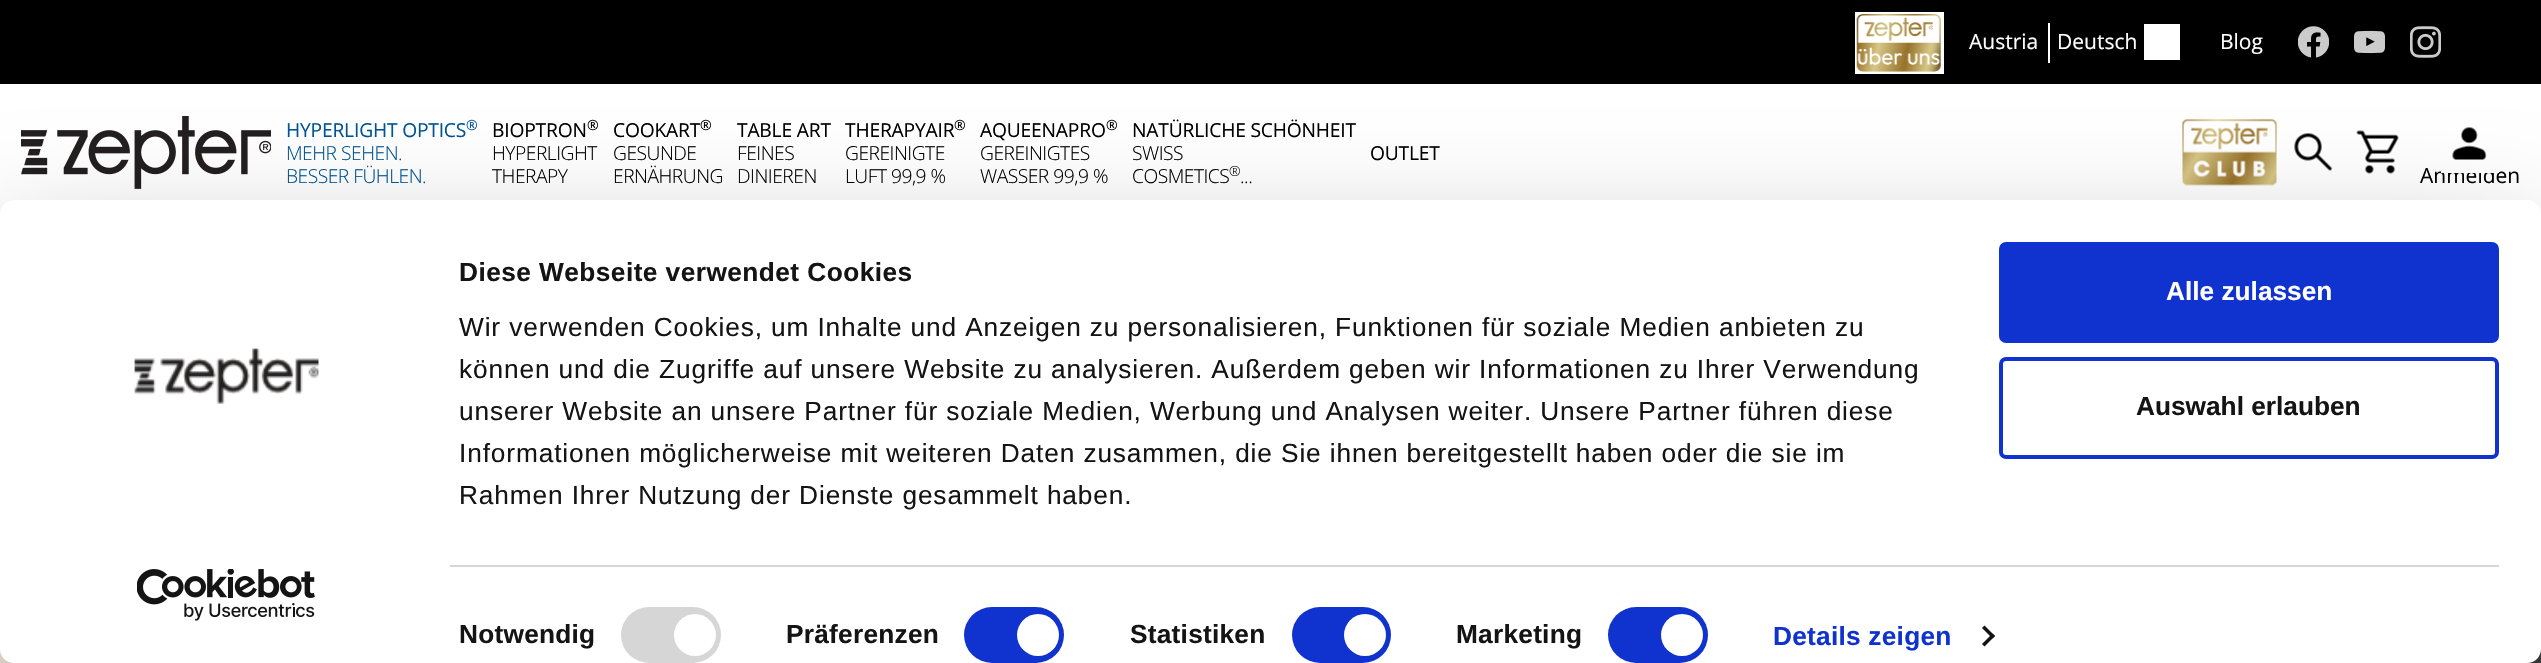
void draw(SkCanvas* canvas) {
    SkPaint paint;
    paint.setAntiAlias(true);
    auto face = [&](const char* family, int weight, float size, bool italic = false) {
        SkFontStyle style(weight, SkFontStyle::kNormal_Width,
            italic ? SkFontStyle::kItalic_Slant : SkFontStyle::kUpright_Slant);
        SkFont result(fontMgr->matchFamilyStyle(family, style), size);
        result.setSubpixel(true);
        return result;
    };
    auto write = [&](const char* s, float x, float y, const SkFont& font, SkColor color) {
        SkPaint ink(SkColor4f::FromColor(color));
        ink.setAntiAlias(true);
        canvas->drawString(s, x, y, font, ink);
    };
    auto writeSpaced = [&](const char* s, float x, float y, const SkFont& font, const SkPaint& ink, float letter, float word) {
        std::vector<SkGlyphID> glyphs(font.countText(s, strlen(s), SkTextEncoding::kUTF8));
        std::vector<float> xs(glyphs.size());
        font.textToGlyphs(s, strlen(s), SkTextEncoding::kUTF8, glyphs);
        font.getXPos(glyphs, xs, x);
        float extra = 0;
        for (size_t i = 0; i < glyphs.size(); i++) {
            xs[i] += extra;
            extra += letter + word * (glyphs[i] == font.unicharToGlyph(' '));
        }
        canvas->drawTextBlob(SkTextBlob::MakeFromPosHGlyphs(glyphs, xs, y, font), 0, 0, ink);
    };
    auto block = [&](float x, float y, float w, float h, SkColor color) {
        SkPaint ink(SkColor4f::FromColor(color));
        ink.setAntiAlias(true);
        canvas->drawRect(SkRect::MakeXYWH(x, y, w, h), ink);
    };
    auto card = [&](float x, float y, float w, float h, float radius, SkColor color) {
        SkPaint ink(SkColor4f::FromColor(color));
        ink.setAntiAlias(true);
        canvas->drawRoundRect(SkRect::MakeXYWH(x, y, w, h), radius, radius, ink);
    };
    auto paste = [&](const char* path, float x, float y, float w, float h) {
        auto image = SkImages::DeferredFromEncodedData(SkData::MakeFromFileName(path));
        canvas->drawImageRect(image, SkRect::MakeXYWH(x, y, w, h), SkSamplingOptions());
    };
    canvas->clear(SK_ColorWHITE);
    block(0, 0, 2541, 84, SK_ColorBLACK);
    paste("pic1.png", 1855, 12, 89, 62);
    auto kFont1 = face("Open Sans", 400, 21);
    write("Austria", 1969, 49, kFont1, SK_ColorWHITE);
    block(2048, 23, 2, 40, SK_ColorWHITE);
    write("Deutsch", 2057, 49, kFont1, SK_ColorWHITE);
    block(2144, 24, 36, 36, SK_ColorWHITE);
    write("Blog", 2220, 49, kFont1, SK_ColorWHITE);
    paste("pic2.png", 2298, 26, 31, 32);
    paste("pic3.png", 2354, 30, 31, 24);
    paste("pic4.png", 2410, 26, 31, 32);
    paste("pic5.png", 21, 116, 250, 73);
    auto kFont2 = face("Open Sans", 400, 19.25f);
    paint.setColor(SkColorSetRGB(0, 84, 150));
    writeSpaced("HYPERLIGHT OPTICS", 286, 137, kFont2, paint, -0.2f, 0);
    auto kFont3 = face("Open Sans", 400, 14);
    writeSpaced("®", 466, 130, kFont3, paint, -0.2f, 0);
    auto kFont4 = face("Open Sans", 300, 19.25f);
    writeSpaced("MEHR SEHEN.", 286, 160, kFont4, paint, -0.5f, 0);
    writeSpaced("BESSER FÜHLEN.", 286, 183, kFont4, paint, -0.5f, 0);
    paint.setColor(SK_ColorBLACK);
    writeSpaced("BIOPTRON", 492, 137, kFont2, paint, -0.2f, 0);
    writeSpaced("®", 587, 130, kFont3, paint, -0.2f, 0);
    writeSpaced("HYPERLIGHT", 492, 160, kFont4, paint, -0.5f, 0);
    writeSpaced("THERAPY", 492, 183, kFont4, paint, -0.5f, 0);
    writeSpaced("COOKART", 613, 137, kFont2, paint, -0.2f, 0);
    writeSpaced("®", 700, 130, kFont3, paint, -0.2f, 0);
    writeSpaced("GESUNDE", 613, 160, kFont4, paint, -0.5f, 0);
    writeSpaced("ERNÄHRUNG", 613, 183, kFont4, paint, -0.5f, 0);
    writeSpaced("TABLE ART", 737, 137, kFont2, paint, -0.2f, 0);
    writeSpaced("FEINES", 737, 160, kFont4, paint, -0.5f, 0);
    writeSpaced("DINIEREN", 737, 183, kFont4, paint, -0.5f, 0);
    writeSpaced("THERAPYAIR", 845, 137, kFont2, paint, -0.2f, 0);
    writeSpaced("®", 954, 130, kFont3, paint, -0.2f, 0);
    writeSpaced("GEREINIGTE", 845, 160, kFont4, paint, -0.5f, 0);
    writeSpaced("LUFT 99,9 %", 845, 183, kFont4, paint, -0.5f, 0);
    writeSpaced("AQUEENAPRO", 980, 137, kFont2, paint, -0.2f, 0);
    writeSpaced("®", 1106, 130, kFont3, paint, -0.2f, 0);
    writeSpaced("GEREINIGTES", 980, 160, kFont4, paint, -0.5f, 0);
    writeSpaced("WASSER 99,9 %", 980, 183, kFont4, paint, -0.5f, 0);
    writeSpaced("NATÜRLICHE SCHÖNHEIT", 1132, 137, kFont2, paint, -0.2f, 0);
    writeSpaced("SWISS", 1132, 160, kFont4, paint, -0.5f, 0);
    writeSpaced("COSMETICS", 1132, 183, kFont4, paint, -0.5f, 0);
    auto kFont5 = face("Open Sans", 300, 14);
    writeSpaced("®", 1229, 176, kFont5, paint, -0.5f, 0);
    writeSpaced("...", 1240, 183, kFont4, paint, -0.5f, 0);
    writeSpaced("OUTLET", 1370, 160, kFont2, paint, -0.2f, 0);
    paste("pic6.png", 2182, 119, 95, 67);
    paste("pic7.png", 2294, 133, 38, 38);
    paste("pic8.png", 2356, 130, 43, 44);
    write("Anmelden", 2420, 183, kFont1, SK_ColorBLACK);
    paste("pic9.png", 2441, 127, 58, 46);
    paste("pic12.png", 0, 649, 2541, 14);
    paint.setColor(SkColorSetARGB(77, 0, 0, 0));
    paint.setMaskFilter(SkMaskFilter::MakeBlur(kNormal_SkBlurStyle, 61));
    canvas->drawRoundRect(SkRect::MakeXYWH(0, 252, 2541, 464), 14, 14, paint);
    paint.setMaskFilter(nullptr);
    card(0, 200, 2541, 463, 14, SK_ColorWHITE);
    paste("pic10.png", 134, 348, 185, 56);
    paste("pic11.png", 137, 569, 178, 52);
    auto kFont6 = face("Liberation Sans", 700, 26.25f);
    paint.setColor(SkColorSetRGB(20, 20, 20));
    writeSpaced("Diese Webseite verwendet Cookies", 459, 281, kFont6, paint, 0.45f, 0);
    auto kFont7 = face("Liberation Sans", 400, 26.25f);
    writeSpaced("Wir verwenden Cookies, um Inhalte und Anzeigen zu personalisieren, Funktionen für soziale Medien anbieten zu", 459, 336, kFont7, paint, 0.88f, 0);
    writeSpaced("können und die Zugriffe auf unsere Website zu analysieren. Außerdem geben wir Informationen zu Ihrer Verwendung", 459, 378, kFont7, paint, 0.88f, 0);
    writeSpaced("unserer Website an unsere Partner für soziale Medien, Werbung und Analysen weiter. Unsere Partner führen diese", 459, 420, kFont7, paint, 0.88f, 0);
    writeSpaced("Informationen möglicherweise mit weiteren Daten zusammen, die Sie ihnen bereitgestellt haben oder die sie im", 459, 462, kFont7, paint, 0.88f, 0);
    writeSpaced("Rahmen Ihrer Nutzung der Dienste gesammelt haben.", 459, 504, kFont7, paint, 0.88f, 0);
    block(450, 565, 2049, 2, SkColorSetRGB(214, 214, 214));
    writeSpaced("Notwendig", 459, 643, kFont6, paint, 0.25f, 0);
    card(621, 607, 100, 56, 28, SkColorSetRGB(214, 214, 214));
    paint.setColor(SK_ColorWHITE);
    canvas->drawCircle(695, 635, 21, paint);
    paint.setColor(SkColorSetRGB(20, 20, 20));
    writeSpaced("Präferenzen", 786, 643, kFont6, paint, 0.25f, 0);
    card(964, 607, 100, 56, 28, SkColorSetRGB(16, 50, 207));
    paint.setColor(SK_ColorWHITE);
    canvas->drawCircle(1038, 635, 21, paint);
    paint.setColor(SkColorSetRGB(20, 20, 20));
    writeSpaced("Statistiken", 1130, 643, kFont6, paint, 0.25f, 0);
    card(1292, 607, 99, 56, 28, SkColorSetRGB(16, 50, 207));
    paint.setColor(SK_ColorWHITE);
    canvas->drawCircle(1365, 635, 21, paint);
    paint.setColor(SkColorSetRGB(20, 20, 20));
    writeSpaced("Marketing", 1456, 643, kFont6, paint, 0.25f, 0);
    card(1608, 607, 100, 56, 28, SkColorSetRGB(16, 50, 207));
    paint.setColor(SK_ColorWHITE);
    canvas->drawCircle(1682, 635, 21, paint);
    paint.setColor(SkColorSetRGB(16, 50, 207));
    writeSpaced("Details zeigen", 1773, 645, kFont6, paint, 0.25f, 0);
    paint.setColor(SkColorSetRGB(20, 20, 20));
    canvas->drawPath(SkPathBuilder().moveTo(1984.5f, 625.5f).lineTo(1995, 636).lineTo(1992.5f, 638.5f).lineTo(1982, 628).close().detach(), paint);
    canvas->drawPath(SkPathBuilder().moveTo(1992.5f, 633.5f).lineTo(1995, 636).lineTo(1984.5f, 646.5f).lineTo(1982, 644).close().detach(), paint);
    paint.setColor(SkColorSetRGB(16, 50, 207));
    canvas->drawRoundRect(SkRect::MakeXYWH(2001, 244, 496, 97), 5, 5, paint);
    paint.setStyle(SkPaint::kStroke_Style);
    paint.setStrokeWidth(4);
    canvas->drawRoundRect(SkRect::MakeXYWH(2001, 244, 496, 97), 5, 5, paint);
    write("Alle zulassen", 2166, 300, kFont6, SK_ColorWHITE);
    canvas->drawRoundRect(SkRect::MakeXYWH(2001, 359, 496, 98), 5, 5, paint);
    write("Auswahl erlauben", 2136, 415, kFont6, SkColorSetRGB(20, 20, 20));
}
